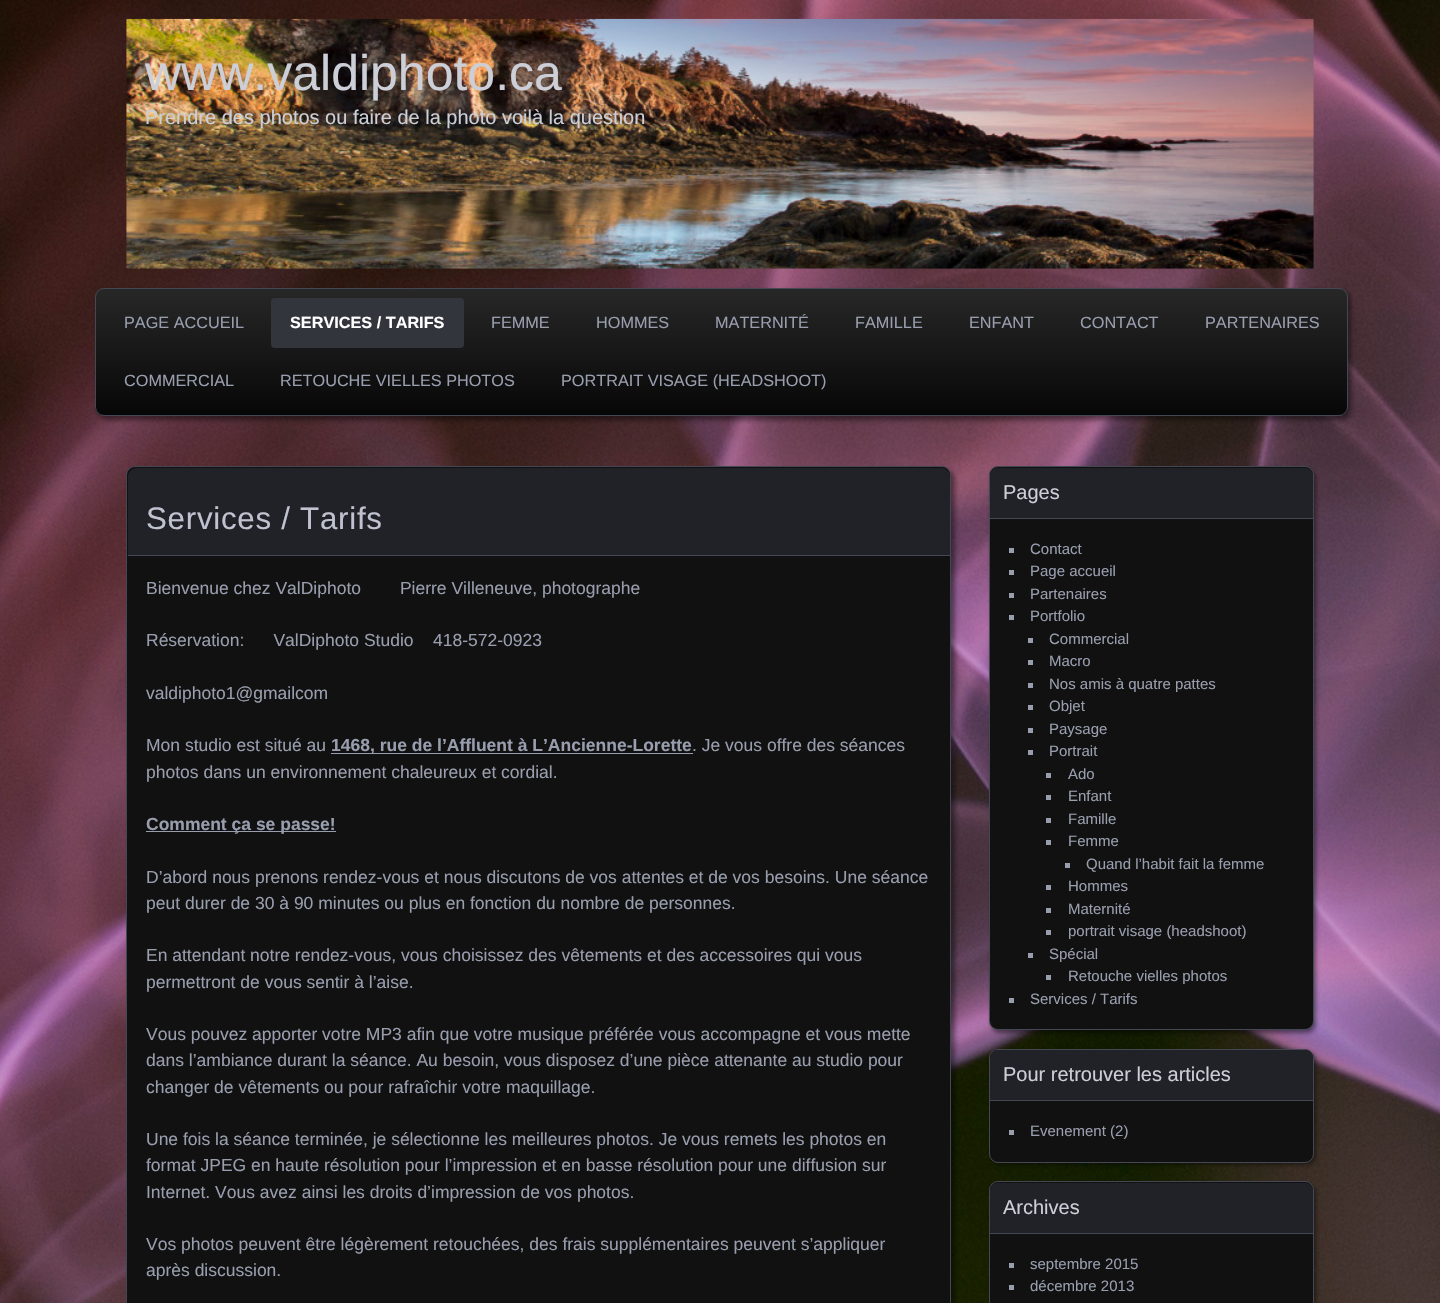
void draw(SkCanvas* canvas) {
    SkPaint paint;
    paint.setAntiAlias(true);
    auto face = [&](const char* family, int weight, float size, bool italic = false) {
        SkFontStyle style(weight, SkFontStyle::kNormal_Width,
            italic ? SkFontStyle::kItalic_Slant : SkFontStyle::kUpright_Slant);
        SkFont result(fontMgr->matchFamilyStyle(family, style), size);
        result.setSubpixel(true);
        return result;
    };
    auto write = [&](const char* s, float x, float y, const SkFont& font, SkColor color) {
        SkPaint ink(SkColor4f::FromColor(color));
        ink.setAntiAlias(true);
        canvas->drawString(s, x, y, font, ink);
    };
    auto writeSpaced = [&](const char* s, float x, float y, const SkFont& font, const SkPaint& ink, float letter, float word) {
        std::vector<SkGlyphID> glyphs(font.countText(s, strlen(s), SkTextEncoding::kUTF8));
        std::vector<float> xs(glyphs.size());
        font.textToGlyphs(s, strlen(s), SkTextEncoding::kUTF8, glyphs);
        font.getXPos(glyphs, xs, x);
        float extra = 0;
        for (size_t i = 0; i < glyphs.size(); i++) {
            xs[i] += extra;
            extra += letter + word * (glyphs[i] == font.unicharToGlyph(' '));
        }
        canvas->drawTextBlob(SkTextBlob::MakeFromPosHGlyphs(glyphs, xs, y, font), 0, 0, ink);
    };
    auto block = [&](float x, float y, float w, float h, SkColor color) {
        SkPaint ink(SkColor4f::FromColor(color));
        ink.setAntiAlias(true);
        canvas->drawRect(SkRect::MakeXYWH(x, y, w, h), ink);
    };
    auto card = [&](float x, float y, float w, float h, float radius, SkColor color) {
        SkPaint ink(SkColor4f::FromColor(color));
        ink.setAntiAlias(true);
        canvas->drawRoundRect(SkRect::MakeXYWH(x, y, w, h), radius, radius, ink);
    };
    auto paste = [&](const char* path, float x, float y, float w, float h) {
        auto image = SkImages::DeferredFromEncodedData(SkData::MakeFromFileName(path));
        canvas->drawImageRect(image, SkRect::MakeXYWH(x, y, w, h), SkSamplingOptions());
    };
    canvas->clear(SK_ColorWHITE);
    paste("pic1.png", 0, 0, 1440, 1303);
    paste("pic2.png", 126, 18, 1188, 251);
    auto kFont1 = face("Liberation Sans", 400, 50);
    write("www.valdiphoto.ca", 145, 90, kFont1, SkColorSetRGB(204, 207, 215));
    auto kFont2 = face("Liberation Sans", 400, 20);
    write("Prendre des photos ou faire de la photo voilà la question", 145, 124, kFont2, SkColorSetRGB(204, 207, 215));
    paint.setColor(SkColorSetARGB(115, 0, 0, 0));
    paint.setMaskFilter(SkMaskFilter::MakeBlur(kNormal_SkBlurStyle, 2.5f));
    canvas->drawRoundRect(SkRect::MakeXYWH(99, 291, 1252, 129), 9, 9, paint);
    paint.setMaskFilter(nullptr);
    canvas->save();
    canvas->clipPath(SkPathBuilder().moveTo(104, 288).lineTo(1339, 288).cubicTo(1344, 288, 1348, 292, 1348, 297).lineTo(1348, 407).cubicTo(1348, 412, 1344, 416, 1339, 416).lineTo(104, 416).cubicTo(99, 416, 95, 412, 95, 407).lineTo(95, 297).cubicTo(95, 292, 99, 288, 104, 288).close().detach(), true);
    {
        const SkColor colors[] = {SkColorSetRGB(39, 39, 39), SkColorSetRGB(7, 7, 7)};
        const float stops[] = {0.01f, 1};
        const SkPoint ends[] = {{721, 289}, {721, 415}};
        paint.setShader(SkGradientShader::MakeLinear(ends, colors, stops, 2, SkTileMode::kClamp));
        paint.setAlpha(255);
    }
    canvas->drawRect(SkRect::MakeXYWH(95, 289, 1253, 126), paint);
    canvas->restore();
    paint.setStyle(SkPaint::kStroke_Style);
    paint.setStrokeWidth(1);
    paint.setShader(nullptr);
    paint.setColor(SkColorSetRGB(68, 72, 85));
    canvas->drawRoundRect(SkRect::MakeXYWH(95.5f, 288.5f, 1252, 127), 8.5f, 8.5f, paint);
    auto kFont3 = face("Liberation Sans", 400, 16.25f);
    write("PAGE ACCUEIL", 124, 328, kFont3, SkColorSetRGB(152, 158, 174));
    card(271, 298, 193, 50, 4, SkColorSetRGB(51, 53, 61));
    auto kFont4 = face("Liberation Sans", 700, 16.25f);
    write("SERVICES / TARIFS", 290, 328, kFont4, SK_ColorWHITE);
    write("FEMME", 491, 328, kFont3, SkColorSetRGB(152, 158, 174));
    write("HOMMES", 596, 328, kFont3, SkColorSetRGB(152, 158, 174));
    write("MATERNITÉ", 715, 328, kFont3, SkColorSetRGB(152, 158, 174));
    write("FAMILLE", 855, 328, kFont3, SkColorSetRGB(152, 158, 174));
    write("ENFANT", 969, 328, kFont3, SkColorSetRGB(152, 158, 174));
    write("CONTACT", 1080, 328, kFont3, SkColorSetRGB(152, 158, 174));
    write("PARTENAIRES", 1205, 328, kFont3, SkColorSetRGB(152, 158, 174));
    write("COMMERCIAL", 124, 386, kFont3, SkColorSetRGB(152, 158, 174));
    write("RETOUCHE VIELLES PHOTOS", 280, 386, kFont3, SkColorSetRGB(152, 158, 174));
    write("PORTRAIT VISAGE (HEADSHOOT)", 561, 386, kFont3, SkColorSetRGB(152, 158, 174));
    paint.setStyle(SkPaint::kFill_Style);
    paint.setColor(SkColorSetARGB(115, 0, 0, 0));
    paint.setMaskFilter(SkMaskFilter::MakeBlur(kNormal_SkBlurStyle, 2.5f));
    canvas->drawRoundRect(SkRect::MakeXYWH(130, 470, 825, 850), 9, 9, paint);
    paint.setMaskFilter(nullptr);
    paint.setColor(SkColorSetRGB(17, 17, 17));
    canvas->drawRoundRect(SkRect::MakeXYWH(126.5f, 466.5f, 824, 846), 8.5f, 8.5f, paint);
    paint.setStyle(SkPaint::kStroke_Style);
    paint.setColor(SkColorSetRGB(68, 72, 85));
    canvas->drawRoundRect(SkRect::MakeXYWH(126.5f, 466.5f, 824, 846), 8.5f, 8.5f, paint);
    paint.setStyle(SkPaint::kFill_Style);
    paint.setColor(SkColorSetRGB(32, 34, 40));
    canvas->drawPath(SkPathBuilder().moveTo(137, 468).lineTo(941, 468).cubicTo(946, 468, 950, 472, 950, 477).lineTo(950, 556).lineTo(128, 556).lineTo(128, 477).cubicTo(128, 472, 132, 468, 137, 468).close().detach(), paint);
    block(128, 555, 822, 1, SkColorSetRGB(68, 72, 85));
    auto kFont5 = face("Liberation Sans", 400, 31.25f);
    paint.setColor(SkColorSetRGB(191, 195, 207));
    writeSpaced("Services / Tarifs", 146, 529, kFont5, paint, 0.75f, 0);
    auto kFont6 = face("Liberation Sans", 400, 17.5f);
    write("Bienvenue chez ValDiphoto        Pierre Villeneuve, photographe", 146, 594, kFont6, SkColorSetRGB(152, 158, 174));
    write("Réservation:      ValDiphoto Studio    418-572-0923", 146, 646, kFont6, SkColorSetRGB(152, 158, 174));
    write("valdiphoto1@gmailcom", 146, 699, kFont6, SkColorSetRGB(152, 158, 174));
    write("Mon studio est situé au", 146, 751, kFont6, SkColorSetRGB(152, 158, 174));
    block(331, 753, 362, 1, SkColorSetRGB(152, 158, 174));
    auto kFont7 = face("Liberation Sans", 700, 17.5f);
    write("1468, rue de l’Affluent à L’Ancienne-Lorette", 331, 751, kFont7, SkColorSetRGB(152, 158, 174));
    write(". Je vous offre des séances", 692, 751, kFont6, SkColorSetRGB(152, 158, 174));
    write("photos dans un environnement chaleureux et cordial.", 146, 778, kFont6, SkColorSetRGB(152, 158, 174));
    block(146, 831, 190, 1, SkColorSetRGB(152, 158, 174));
    write("Comment ça se passe!", 146, 830, kFont7, SkColorSetRGB(152, 158, 174));
    write("D’abord nous prenons rendez-vous et nous discutons de vos attentes et de vos besoins. Une séance", 146, 883, kFont6, SkColorSetRGB(152, 158, 174));
    write("peut durer de 30 à 90 minutes ou plus en fonction du nombre de personnes.", 146, 909, kFont6, SkColorSetRGB(152, 158, 174));
    write("En attendant notre rendez-vous, vous choisissez des vêtements et des accessoires qui vous", 146, 961, kFont6, SkColorSetRGB(152, 158, 174));
    write("permettront de vous sentir à l’aise.", 146, 988, kFont6, SkColorSetRGB(152, 158, 174));
    write("Vous pouvez apporter votre MP3 afin que votre musique préférée vous accompagne et vous mette", 146, 1040, kFont6, SkColorSetRGB(152, 158, 174));
    write("dans l’ambiance durant la séance. Au besoin, vous disposez d’une pièce attenante au studio pour", 146, 1066, kFont6, SkColorSetRGB(152, 158, 174));
    write("changer de vêtements ou pour rafraîchir votre maquillage.", 146, 1093, kFont6, SkColorSetRGB(152, 158, 174));
    write("Une fois la séance terminée, je sélectionne les meilleures photos. Je vous remets les photos en", 146, 1145, kFont6, SkColorSetRGB(152, 158, 174));
    write("format JPEG en haute résolution pour l’impression et en basse résolution pour une diffusion sur", 146, 1171, kFont6, SkColorSetRGB(152, 158, 174));
    write("Internet. Vous avez ainsi les droits d’impression de vos photos.", 146, 1198, kFont6, SkColorSetRGB(152, 158, 174));
    write("Vos photos peuvent être légèrement retouchées, des frais supplémentaires peuvent s’appliquer", 146, 1250, kFont6, SkColorSetRGB(152, 158, 174));
    write("après discussion.", 146, 1276, kFont6, SkColorSetRGB(152, 158, 174));
    paint.setColor(SkColorSetARGB(115, 0, 0, 0));
    paint.setMaskFilter(SkMaskFilter::MakeBlur(kNormal_SkBlurStyle, 2));
    canvas->drawRoundRect(SkRect::MakeXYWH(991, 469, 325, 564), 9, 9, paint);
    paint.setMaskFilter(nullptr);
    paint.setColor(SkColorSetRGB(17, 17, 17));
    canvas->drawRoundRect(SkRect::MakeXYWH(989.5f, 466.5f, 324, 563), 8.5f, 8.5f, paint);
    paint.setStyle(SkPaint::kStroke_Style);
    paint.setColor(SkColorSetRGB(68, 72, 85));
    canvas->drawRoundRect(SkRect::MakeXYWH(989.5f, 466.5f, 324, 563), 8.5f, 8.5f, paint);
    paint.setStyle(SkPaint::kFill_Style);
    paint.setColor(SkColorSetRGB(32, 34, 40));
    canvas->drawPath(SkPathBuilder().moveTo(998, 468).lineTo(1305, 468).cubicTo(1309.5f, 468, 1313, 471.5f, 1313, 476).lineTo(1313, 519).lineTo(990, 519).lineTo(990, 476).cubicTo(990, 471.5f, 993.5f, 468, 998, 468).close().detach(), paint);
    block(990, 518, 323, 1, SkColorSetRGB(68, 72, 85));
    write("Pages", 1003, 499, kFont2, SkColorSetRGB(204, 207, 215));
    block(1009, 548, 5, 5, SkColorSetRGB(152, 158, 174));
    auto kFont8 = face("Liberation Sans", 400, 15);
    write("Contact", 1030, 554, kFont8, SkColorSetRGB(152, 158, 174));
    block(1009, 570, 5, 5, SkColorSetRGB(152, 158, 174));
    write("Page accueil", 1030, 576, kFont8, SkColorSetRGB(152, 158, 174));
    block(1009, 593, 5, 5, SkColorSetRGB(152, 158, 174));
    write("Partenaires", 1030, 599, kFont8, SkColorSetRGB(152, 158, 174));
    block(1009, 615, 5, 5, SkColorSetRGB(152, 158, 174));
    write("Portfolio", 1030, 621, kFont8, SkColorSetRGB(152, 158, 174));
    block(1028, 638, 5, 5, SkColorSetRGB(152, 158, 174));
    write("Commercial", 1049, 644, kFont8, SkColorSetRGB(152, 158, 174));
    block(1028, 660, 5, 5, SkColorSetRGB(152, 158, 174));
    write("Macro", 1049, 666, kFont8, SkColorSetRGB(152, 158, 174));
    block(1028, 683, 5, 5, SkColorSetRGB(152, 158, 174));
    write("Nos amis à quatre pattes", 1049, 689, kFont8, SkColorSetRGB(152, 158, 174));
    block(1028, 705, 5, 5, SkColorSetRGB(152, 158, 174));
    write("Objet", 1049, 711, kFont8, SkColorSetRGB(152, 158, 174));
    block(1028, 728, 5, 5, SkColorSetRGB(152, 158, 174));
    write("Paysage", 1049, 734, kFont8, SkColorSetRGB(152, 158, 174));
    block(1028, 750, 5, 5, SkColorSetRGB(152, 158, 174));
    write("Portrait", 1049, 756, kFont8, SkColorSetRGB(152, 158, 174));
    block(1046, 773, 5, 5, SkColorSetRGB(152, 158, 174));
    write("Ado", 1068, 779, kFont8, SkColorSetRGB(152, 158, 174));
    block(1046, 795, 5, 5, SkColorSetRGB(152, 158, 174));
    write("Enfant", 1068, 801, kFont8, SkColorSetRGB(152, 158, 174));
    block(1046, 818, 5, 5, SkColorSetRGB(152, 158, 174));
    write("Famille", 1068, 824, kFont8, SkColorSetRGB(152, 158, 174));
    block(1046, 840, 5, 5, SkColorSetRGB(152, 158, 174));
    write("Femme", 1068, 846, kFont8, SkColorSetRGB(152, 158, 174));
    block(1065, 863, 5, 5, SkColorSetRGB(152, 158, 174));
    write("Quand l’habit fait la femme", 1086, 869, kFont8, SkColorSetRGB(152, 158, 174));
    block(1046, 885, 5, 5, SkColorSetRGB(152, 158, 174));
    write("Hommes", 1068, 891, kFont8, SkColorSetRGB(152, 158, 174));
    block(1046, 908, 5, 5, SkColorSetRGB(152, 158, 174));
    write("Maternité", 1068, 914, kFont8, SkColorSetRGB(152, 158, 174));
    block(1046, 930, 5, 5, SkColorSetRGB(152, 158, 174));
    write("portrait visage (headshoot)", 1068, 936, kFont8, SkColorSetRGB(152, 158, 174));
    block(1028, 953, 5, 5, SkColorSetRGB(152, 158, 174));
    write("Spécial", 1049, 959, kFont8, SkColorSetRGB(152, 158, 174));
    block(1046, 975, 5, 5, SkColorSetRGB(152, 158, 174));
    write("Retouche vielles photos", 1068, 981, kFont8, SkColorSetRGB(152, 158, 174));
    block(1009, 998, 5, 5, SkColorSetRGB(152, 158, 174));
    write("Services / Tarifs", 1030, 1004, kFont8, SkColorSetRGB(152, 158, 174));
    paint.setColor(SkColorSetARGB(115, 0, 0, 0));
    paint.setMaskFilter(SkMaskFilter::MakeBlur(kNormal_SkBlurStyle, 2));
    canvas->drawRoundRect(SkRect::MakeXYWH(991, 1051, 325, 114), 9, 9, paint);
    paint.setMaskFilter(nullptr);
    paint.setColor(SkColorSetRGB(17, 17, 17));
    canvas->drawRoundRect(SkRect::MakeXYWH(989.5f, 1049.5f, 324, 113), 8.5f, 8.5f, paint);
    paint.setStyle(SkPaint::kStroke_Style);
    paint.setColor(SkColorSetRGB(68, 72, 85));
    canvas->drawRoundRect(SkRect::MakeXYWH(989.5f, 1049.5f, 324, 113), 8.5f, 8.5f, paint);
    paint.setStyle(SkPaint::kFill_Style);
    paint.setColor(SkColorSetRGB(32, 34, 40));
    canvas->drawPath(SkPathBuilder().moveTo(998, 1050).lineTo(1305, 1050).cubicTo(1309.5f, 1050, 1313, 1053.5f, 1313, 1058).lineTo(1313, 1101).lineTo(990, 1101).lineTo(990, 1058).cubicTo(990, 1053.5f, 993.5f, 1050, 998, 1050).close().detach(), paint);
    block(990, 1100, 323, 1, SkColorSetRGB(68, 72, 85));
    write("Pour retrouver les articles", 1003, 1081, kFont2, SkColorSetRGB(204, 207, 215));
    block(1009, 1130, 5, 5, SkColorSetRGB(152, 158, 174));
    write("Evenement (2)", 1030, 1136, kFont8, SkColorSetRGB(152, 158, 174));
    paint.setColor(SkColorSetARGB(115, 0, 0, 0));
    paint.setMaskFilter(SkMaskFilter::MakeBlur(kNormal_SkBlurStyle, 2));
    canvas->drawRoundRect(SkRect::MakeXYWH(991, 1184, 325, 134), 9, 9, paint);
    paint.setMaskFilter(nullptr);
    paint.setColor(SkColorSetRGB(17, 17, 17));
    canvas->drawRoundRect(SkRect::MakeXYWH(989.5f, 1181.5f, 324, 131), 8.5f, 8.5f, paint);
    paint.setStyle(SkPaint::kStroke_Style);
    paint.setColor(SkColorSetRGB(68, 72, 85));
    canvas->drawRoundRect(SkRect::MakeXYWH(989.5f, 1181.5f, 324, 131), 8.5f, 8.5f, paint);
    paint.setStyle(SkPaint::kFill_Style);
    paint.setColor(SkColorSetRGB(32, 34, 40));
    canvas->drawPath(SkPathBuilder().moveTo(998, 1183).lineTo(1305, 1183).cubicTo(1309.5f, 1183, 1313, 1186.5f, 1313, 1191).lineTo(1313, 1234).lineTo(990, 1234).lineTo(990, 1191).cubicTo(990, 1186.5f, 993.5f, 1183, 998, 1183).close().detach(), paint);
    block(990, 1233, 323, 1, SkColorSetRGB(68, 72, 85));
    write("Archives", 1003, 1214, kFont2, SkColorSetRGB(204, 207, 215));
    block(1009, 1263, 5, 5, SkColorSetRGB(152, 158, 174));
    write("septembre 2015", 1030, 1269, kFont8, SkColorSetRGB(152, 158, 174));
    block(1009, 1285, 5, 5, SkColorSetRGB(152, 158, 174));
    write("décembre 2013", 1030, 1291, kFont8, SkColorSetRGB(152, 158, 174));
}
